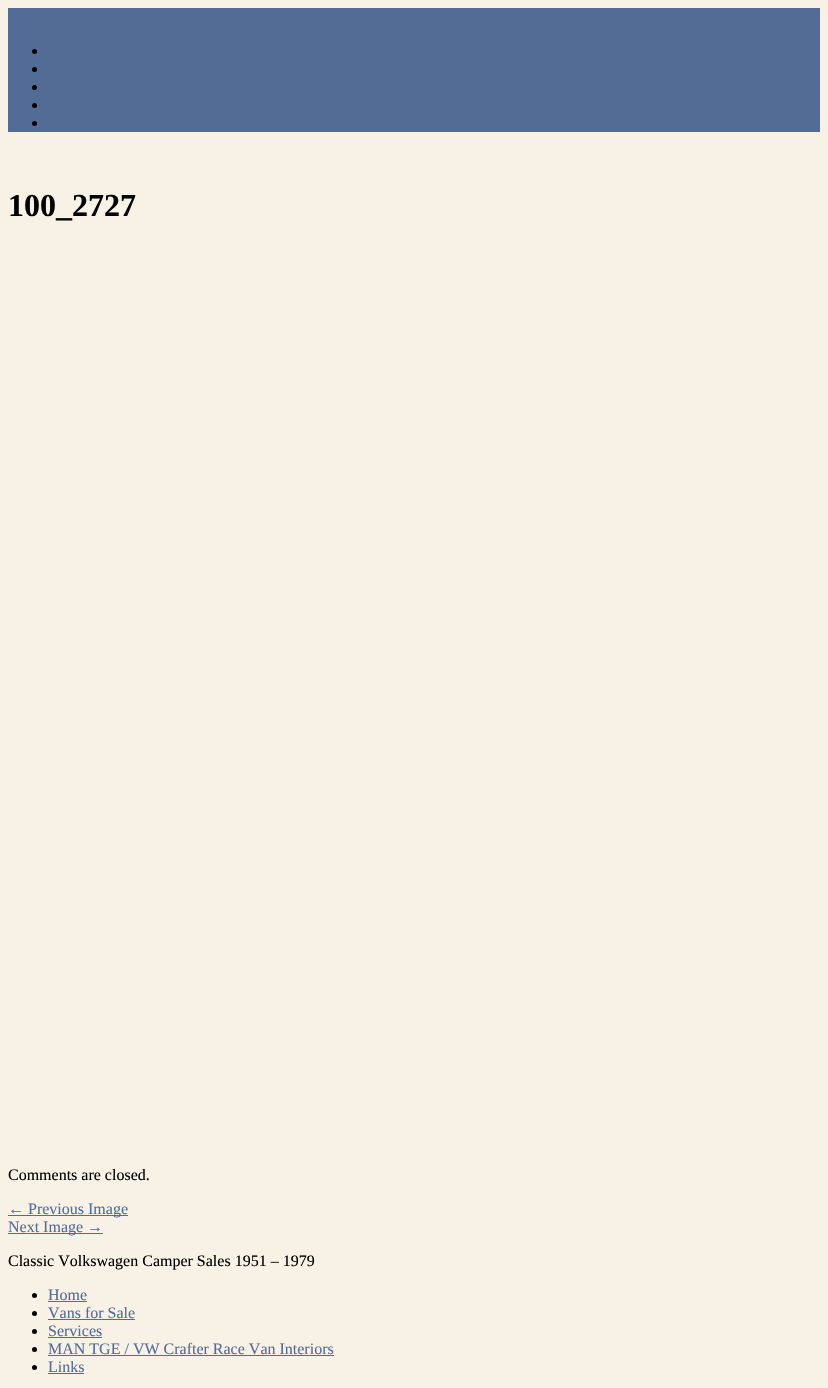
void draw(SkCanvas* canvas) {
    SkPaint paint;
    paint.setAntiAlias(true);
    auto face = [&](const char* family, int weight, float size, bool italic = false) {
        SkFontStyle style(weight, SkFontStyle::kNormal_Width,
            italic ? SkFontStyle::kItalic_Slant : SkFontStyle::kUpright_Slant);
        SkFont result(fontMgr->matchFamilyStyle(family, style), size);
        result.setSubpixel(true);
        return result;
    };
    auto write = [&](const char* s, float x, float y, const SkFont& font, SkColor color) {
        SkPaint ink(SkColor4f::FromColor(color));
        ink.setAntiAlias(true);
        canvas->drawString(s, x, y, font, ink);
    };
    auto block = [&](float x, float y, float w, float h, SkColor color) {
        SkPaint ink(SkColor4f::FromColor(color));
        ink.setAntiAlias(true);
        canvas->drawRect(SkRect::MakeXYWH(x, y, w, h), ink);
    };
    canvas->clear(SkColorSetRGB(248, 241, 230));
    block(8, 8, 812, 124, SkColorSetRGB(82, 108, 149));
    paint.setColor(SK_ColorBLACK);
    canvas->drawCircle(34.5f, 51.5f, 2.5f, paint);
    canvas->drawCircle(34.5f, 69.5f, 2.5f, paint);
    canvas->drawCircle(34.5f, 87.5f, 2.5f, paint);
    canvas->drawCircle(34.5f, 105.5f, 2.5f, paint);
    canvas->drawCircle(34.5f, 123.5f, 2.5f, paint);
    auto kFont1 = face("Liberation Serif", 700, 32);
    write("100_2727", 8, 216, kFont1, SK_ColorBLACK);
    auto kFont2 = face("Liberation Serif", 400, 16);
    write("Comments are closed.", 8, 1180, kFont2, SK_ColorBLACK);
    block(8, 1215, 120, 1, SkColorSetRGB(82, 108, 149));
    write("← Previous Image", 8, 1214, kFont2, SkColorSetRGB(82, 108, 149));
    block(8, 1233, 95, 1, SkColorSetRGB(82, 108, 149));
    write("Next Image →", 8, 1232, kFont2, SkColorSetRGB(82, 108, 149));
    write("Classic Volkswagen Camper Sales 1951 – 1979", 8, 1266, kFont2, SK_ColorBLACK);
    canvas->drawCircle(34.5f, 1295.5f, 2.5f, paint);
    write("Home", 48, 1300, kFont2, SkColorSetRGB(82, 108, 149));
    block(48, 1301, 39, 1, SkColorSetRGB(82, 108, 149));
    canvas->drawCircle(34.5f, 1313.5f, 2.5f, paint);
    write("Vans for Sale", 48, 1318, kFont2, SkColorSetRGB(82, 108, 149));
    block(48, 1319, 87, 1, SkColorSetRGB(82, 108, 149));
    canvas->drawCircle(34.5f, 1331.5f, 2.5f, paint);
    write("Services", 48, 1336, kFont2, SkColorSetRGB(82, 108, 149));
    block(48, 1337, 54, 1, SkColorSetRGB(82, 108, 149));
    canvas->drawCircle(34.5f, 1349.5f, 2.5f, paint);
    write("MAN TGE / VW Crafter Race Van Interiors", 48, 1354, kFont2, SkColorSetRGB(82, 108, 149));
    block(48, 1355, 286, 1, SkColorSetRGB(82, 108, 149));
    canvas->drawCircle(34.5f, 1367.5f, 2.5f, paint);
    write("Links", 48, 1372, kFont2, SkColorSetRGB(82, 108, 149));
    block(48, 1373, 36, 1, SkColorSetRGB(82, 108, 149));
}
